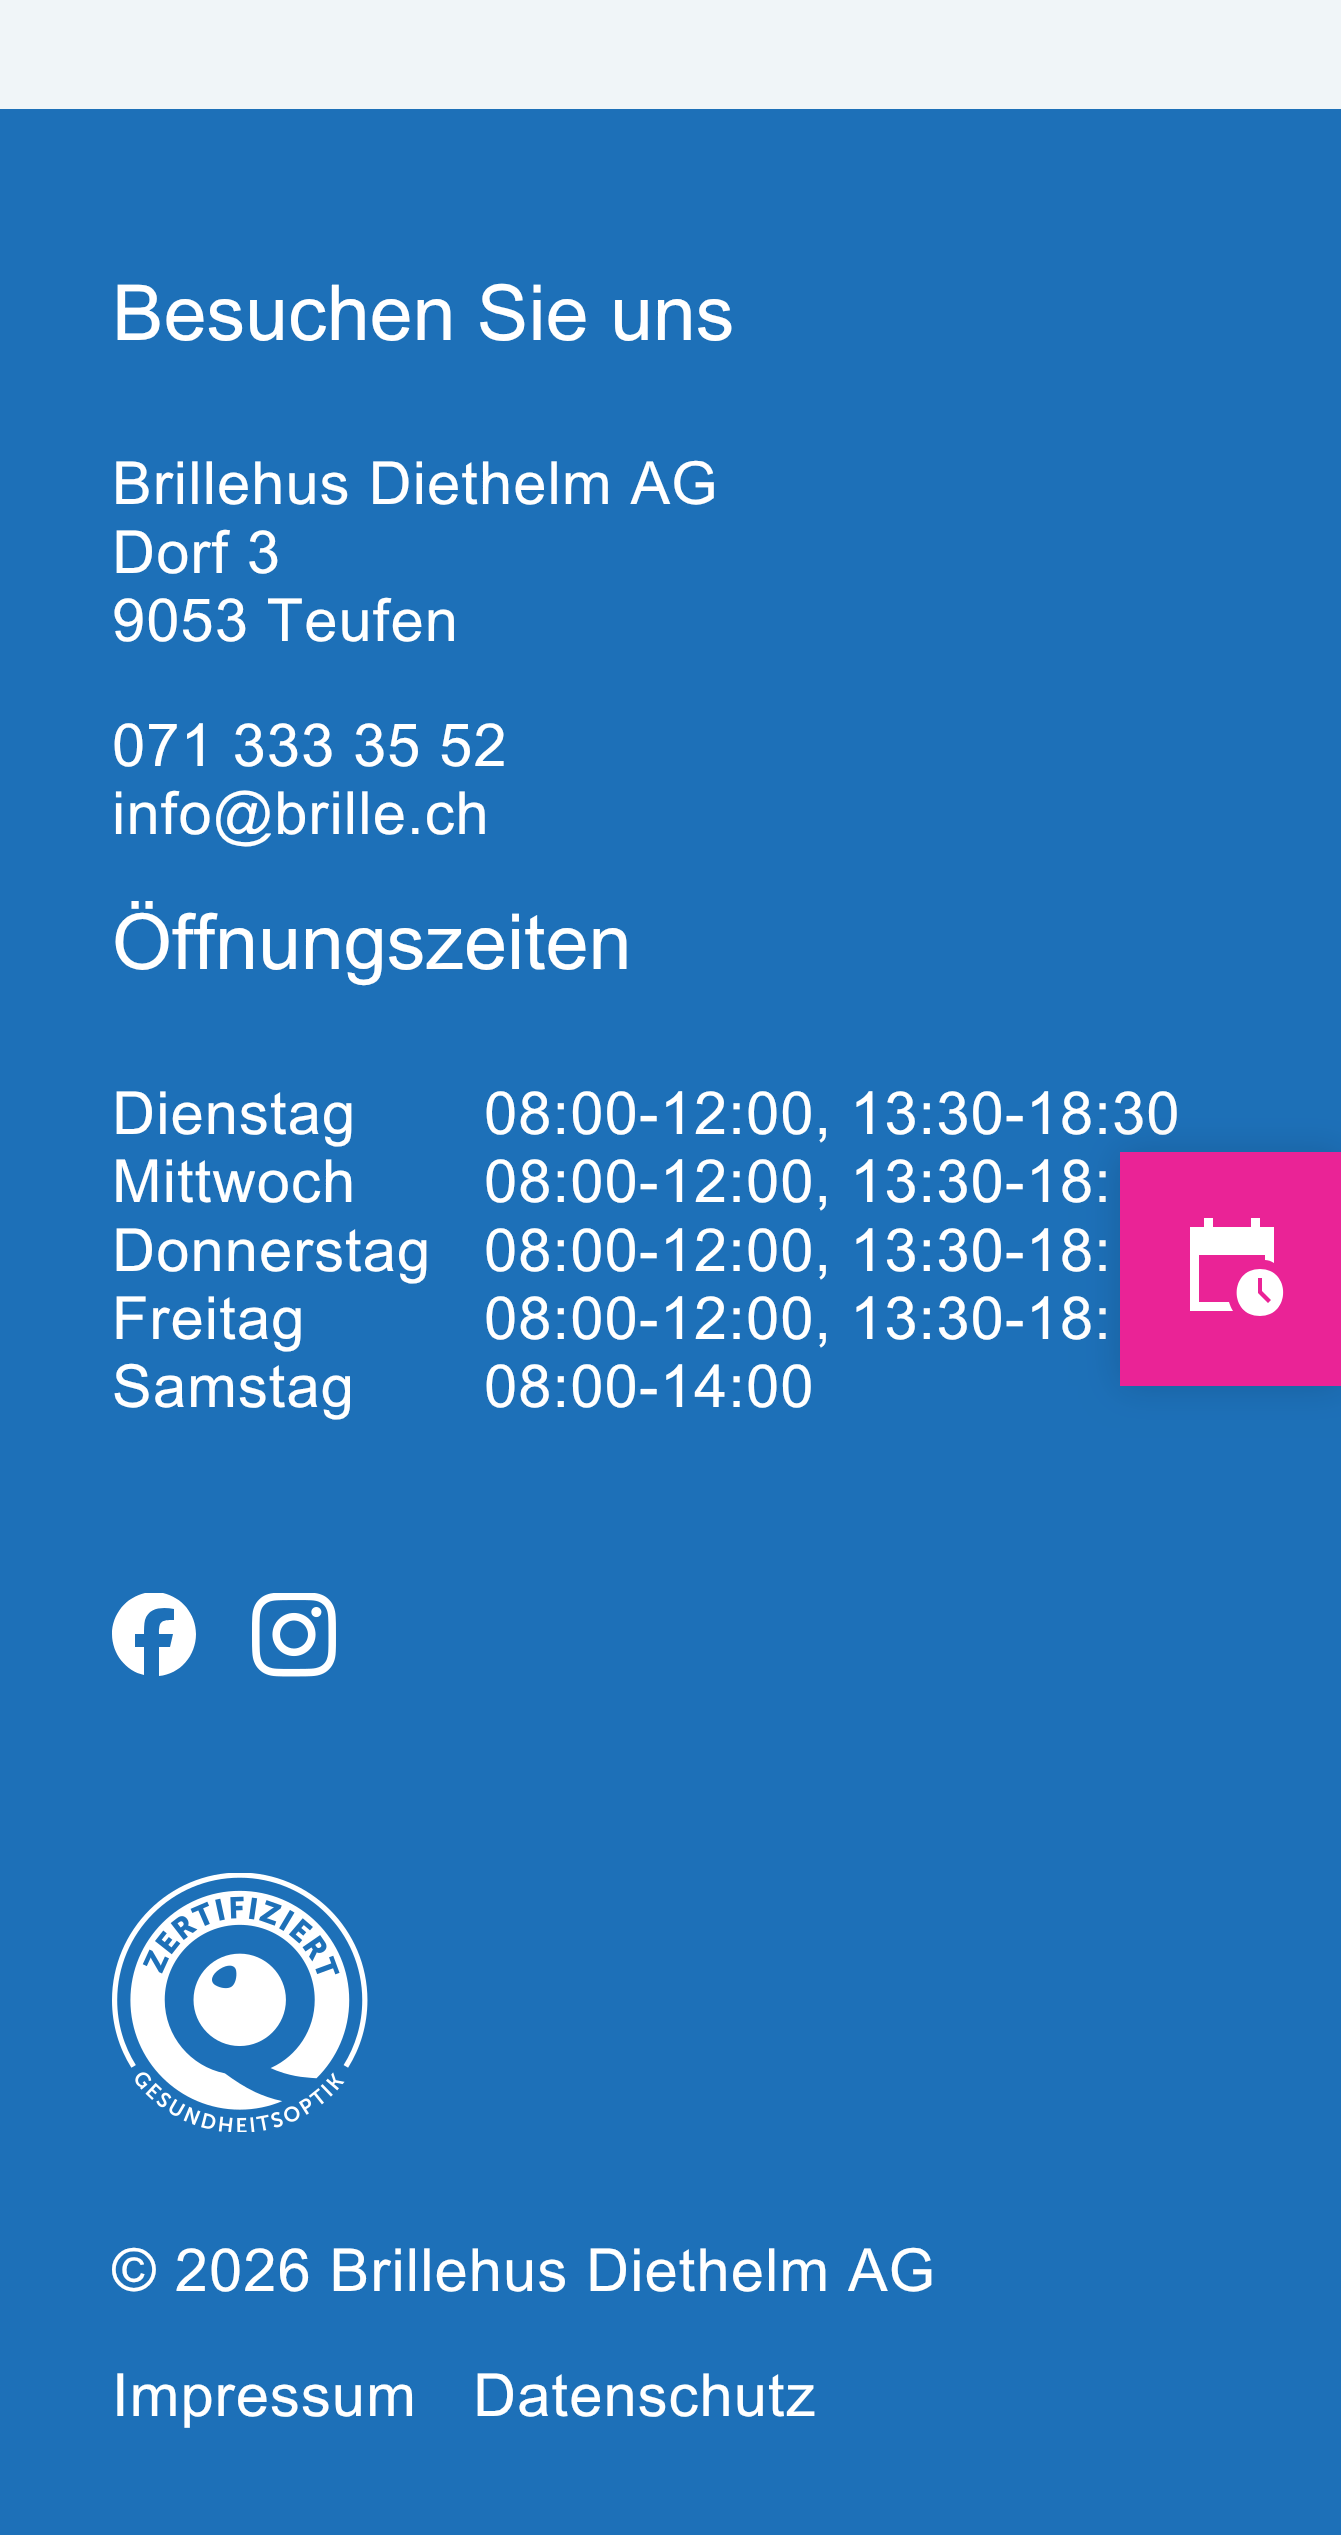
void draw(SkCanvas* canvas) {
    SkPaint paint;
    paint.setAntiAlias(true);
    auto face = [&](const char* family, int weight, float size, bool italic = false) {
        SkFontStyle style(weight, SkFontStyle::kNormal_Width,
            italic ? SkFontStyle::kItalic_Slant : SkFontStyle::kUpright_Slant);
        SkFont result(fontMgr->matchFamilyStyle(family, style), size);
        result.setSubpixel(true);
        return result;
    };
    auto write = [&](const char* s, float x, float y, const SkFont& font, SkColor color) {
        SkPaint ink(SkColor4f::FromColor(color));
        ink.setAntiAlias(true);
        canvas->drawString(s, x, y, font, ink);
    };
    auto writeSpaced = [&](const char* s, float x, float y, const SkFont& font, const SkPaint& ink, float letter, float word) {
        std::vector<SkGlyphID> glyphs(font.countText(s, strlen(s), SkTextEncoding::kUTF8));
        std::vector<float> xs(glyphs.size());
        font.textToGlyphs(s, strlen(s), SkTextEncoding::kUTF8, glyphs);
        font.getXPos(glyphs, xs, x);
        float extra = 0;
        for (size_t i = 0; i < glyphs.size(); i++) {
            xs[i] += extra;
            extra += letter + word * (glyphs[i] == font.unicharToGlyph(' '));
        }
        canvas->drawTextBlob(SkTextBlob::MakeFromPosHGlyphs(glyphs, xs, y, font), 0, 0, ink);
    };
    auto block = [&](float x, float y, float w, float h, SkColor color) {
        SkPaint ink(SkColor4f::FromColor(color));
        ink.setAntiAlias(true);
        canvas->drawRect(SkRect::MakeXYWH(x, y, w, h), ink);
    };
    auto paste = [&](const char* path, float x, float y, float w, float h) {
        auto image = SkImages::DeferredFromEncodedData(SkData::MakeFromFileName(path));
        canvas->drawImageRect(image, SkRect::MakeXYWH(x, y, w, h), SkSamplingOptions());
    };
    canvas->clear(SkColorSetRGB(29, 112, 184));
    block(0, 0, 1341, 109, SkColorSetRGB(240, 245, 248));
    auto kFont1 = face("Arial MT", 400, 77.25f);
    write("Besuchen Sie uns", 112, 340, kFont1, SK_ColorWHITE);
    auto kFont2 = face("Arial MT", 400, 59.5f);
    paint.setColor(SK_ColorWHITE);
    writeSpaced("Brillehus Diethelm AG", 112, 504, kFont2, paint, 1.2f, 0);
    writeSpaced("Dorf 3", 112, 573, kFont2, paint, 1.2f, 0);
    writeSpaced("9053 Teufen", 112, 641, kFont2, paint, 1.2f, 0);
    writeSpaced("071 333 35 52", 112, 766, kFont2, paint, 1.2f, 0);
    writeSpaced("info@brille.ch", 112, 834, kFont2, paint, 1.2f, 0);
    write("Öffnungszeiten", 112, 969, kFont1, SK_ColorWHITE);
    writeSpaced("Dienstag", 112, 1134, kFont2, paint, 1.2f, 0);
    writeSpaced("08:00-12:00, 13:30-18:30", 484, 1134, kFont2, paint, 1.2f, 0);
    writeSpaced("Mittwoch", 112, 1202, kFont2, paint, 1.2f, 0);
    writeSpaced("08:00-12:00, 13:30-18:", 484, 1202, kFont2, paint, 1.2f, 0);
    writeSpaced("Donnerstag", 112, 1271, kFont2, paint, 1.2f, 0);
    writeSpaced("08:00-12:00, 13:30-18:", 484, 1271, kFont2, paint, 1.2f, 0);
    writeSpaced("Freitag", 112, 1339, kFont2, paint, 1.2f, 0);
    writeSpaced("08:00-12:00, 13:30-18:", 484, 1339, kFont2, paint, 1.2f, 0);
    writeSpaced("Samstag", 112, 1407, kFont2, paint, 1.2f, 0);
    writeSpaced("08:00-14:00", 484, 1407, kFont2, paint, 1.2f, 0);
    canvas->save();
    canvas->clipRect(SkRect::MakeXYWH(112, 1593, 84, 84));
    canvas->drawPath(SkPathBuilder().moveTo(196, 1634).cubicTo(196, 1611, 177, 1592, 154, 1592).cubicTo(131, 1592, 112, 1611, 112, 1634).cubicTo(112, 1654, 126, 1671, 144, 1675).lineTo(144, 1647).lineTo(135, 1647).lineTo(135, 1634).lineTo(144, 1634).cubicTo(144, 1630, 144, 1624, 145, 1620).cubicTo(149, 1607, 163, 1607, 174, 1609).lineTo(174, 1620).cubicTo(161, 1620, 159, 1621, 159, 1634).lineTo(173, 1634).lineTo(170, 1647).lineTo(159, 1647).lineTo(159, 1676).cubicTo(180, 1674, 196, 1656, 196, 1634).close().detach(), paint);
    canvas->restore();
    paste("pic1.png", 252, 1593, 84, 84);
    paste("pic2.png", 112, 1873, 256, 259);
    writeSpaced("© 2026 Brillehus Diethelm AG", 112, 2291, kFont2, paint, 1.2f, 0);
    writeSpaced("Impressum", 112, 2416, kFont2, paint, 1.2f, 0);
    writeSpaced("Datenschutz", 473, 2416, kFont2, paint, 1.2f, 0);
    paint.setColor(SkColorSetARGB(38, 0, 0, 0));
    paint.setMaskFilter(SkMaskFilter::MakeBlur(kNormal_SkBlurStyle, 17.5f));
    canvas->drawRect(SkRect::MakeXYWH(1120, 1152, 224, 234), paint);
    paint.setMaskFilter(nullptr);
    block(1120, 1152, 221, 234, SkColorSetRGB(234, 35, 150));
    paint.setColor(SK_ColorWHITE);
    canvas->drawPath(SkPathBuilder().moveTo(1190, 1311).lineTo(1190, 1227).lineTo(1204, 1227).lineTo(1204, 1218).lineTo(1213, 1218).lineTo(1213, 1227).lineTo(1251, 1227).lineTo(1251, 1218).lineTo(1260, 1218).lineTo(1260, 1227).lineTo(1274, 1227).lineTo(1274, 1263).cubicTo(1271, 1261, 1268, 1260, 1265, 1260).lineTo(1265, 1255).lineTo(1199, 1255).lineTo(1199, 1302).lineTo(1229, 1302).cubicTo(1230, 1305, 1231, 1308, 1233, 1311).close().moveTo(1260, 1316).cubicTo(1229, 1316, 1229, 1269, 1260, 1269).cubicTo(1291, 1269, 1291, 1316, 1260, 1316).close().moveTo(1268, 1303).lineTo(1271, 1300).lineTo(1262, 1291).lineTo(1262, 1278).lineTo(1258, 1278).lineTo(1258, 1293).close().detach(), paint);
}
